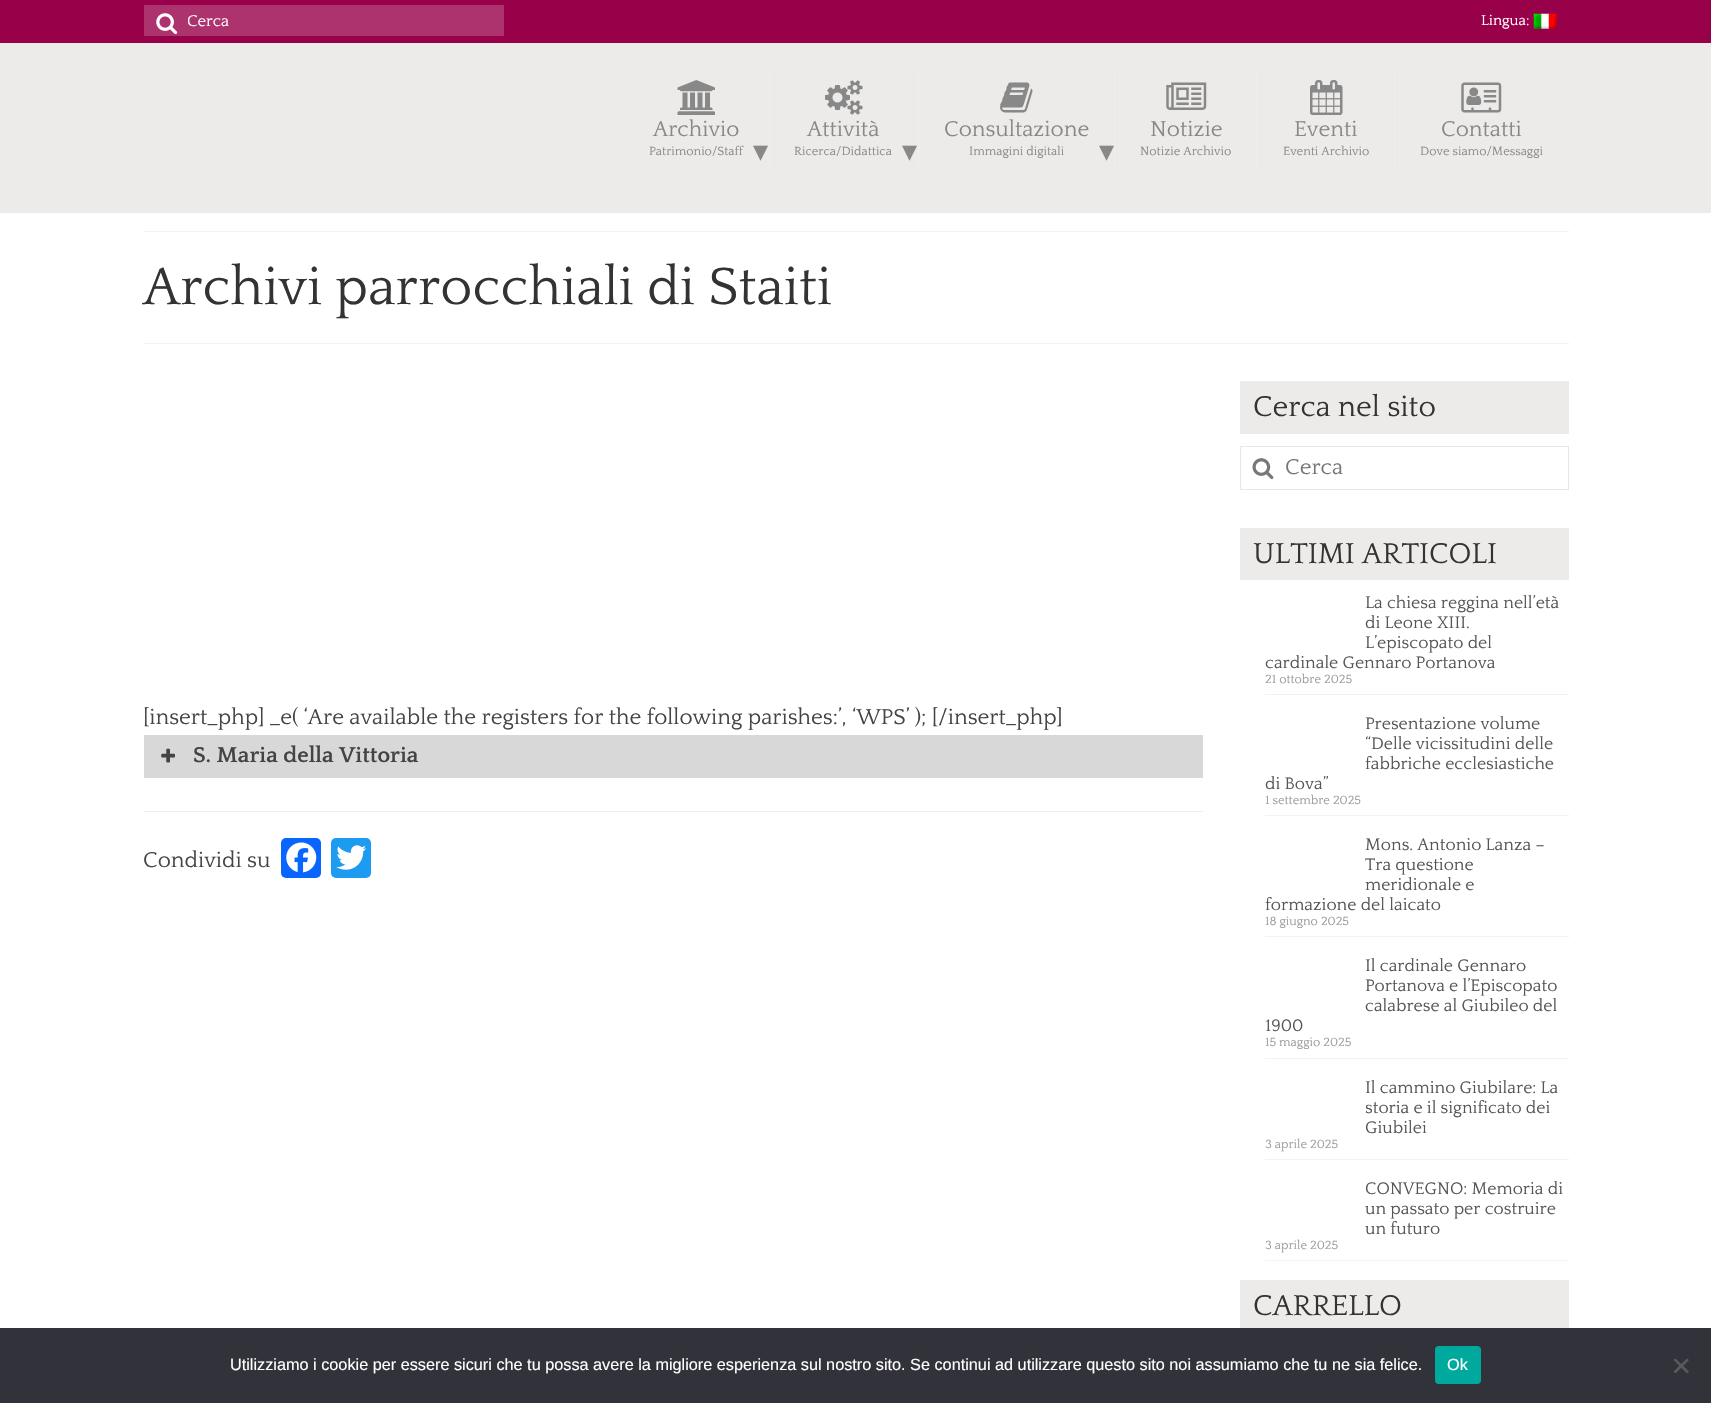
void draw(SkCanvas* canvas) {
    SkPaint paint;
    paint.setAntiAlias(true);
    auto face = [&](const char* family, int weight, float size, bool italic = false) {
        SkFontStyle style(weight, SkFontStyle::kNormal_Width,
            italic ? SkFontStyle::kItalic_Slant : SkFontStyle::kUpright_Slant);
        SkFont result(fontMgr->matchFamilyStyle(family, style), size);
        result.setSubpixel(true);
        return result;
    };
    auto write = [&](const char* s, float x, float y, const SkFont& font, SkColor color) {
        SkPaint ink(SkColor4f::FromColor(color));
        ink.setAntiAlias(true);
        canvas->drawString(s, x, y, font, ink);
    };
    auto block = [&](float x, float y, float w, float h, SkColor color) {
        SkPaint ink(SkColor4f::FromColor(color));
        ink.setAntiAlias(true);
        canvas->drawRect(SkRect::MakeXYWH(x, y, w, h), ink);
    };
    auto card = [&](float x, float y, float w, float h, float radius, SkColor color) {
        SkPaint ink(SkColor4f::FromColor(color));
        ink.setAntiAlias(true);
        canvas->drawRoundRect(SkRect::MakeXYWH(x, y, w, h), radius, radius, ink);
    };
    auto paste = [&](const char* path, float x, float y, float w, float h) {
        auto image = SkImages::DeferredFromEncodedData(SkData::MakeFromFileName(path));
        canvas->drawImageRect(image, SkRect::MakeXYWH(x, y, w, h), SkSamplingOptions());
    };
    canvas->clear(SK_ColorWHITE);
    block(0, 43, 1711, 170, SkColorSetRGB(237, 235, 233));
    block(0, 0, 1711, 43, SkColorSetRGB(153, 0, 74));
    block(144, 5, 360, 31, SkColorSetRGB(173, 51, 110));
    paste("pic1.png", 156, 13, 22, 22);
    canvas->save();
    canvas->clipRect(SkRect::MakeXYWH(188, 13, 310, 17));
    auto kFont1 = face("Quattrocento", 400, 16.25f);
    write("Cerca", 187, 26, kFont1, SK_ColorWHITE);
    canvas->restore();
    auto kFont2 = face("Quattrocento", 400, 15);
    write("Lingua:", 1481, 25, kFont2, SK_ColorWHITE);
    paste("pic2.png", 1533, 13, 24, 16);
    block(769, 68, 1, 103, SkColorSetRGB(238, 238, 238));
    paste("pic3.png", 677, 80, 38, 35);
    auto kFont3 = face("Quattrocento", 400, 22.5f);
    write("Archivio", 653, 136, kFont3, SkColorSetRGB(136, 136, 136));
    auto kFont4 = face("Quattrocento", 400, 12.5f);
    write("Patrimonio/Staff", 649, 155, kFont4, SkColorSetRGB(136, 136, 136));
    auto kFont5 = face("DejaVu Sans", 400, 30);
    write("▾", 753, 161, kFont5, SkColorSetRGB(136, 136, 136));
    block(918, 68, 1, 103, SkColorSetRGB(238, 238, 238));
    paste("pic4.png", 825, 80, 38, 35);
    write("Attività", 807, 136, kFont3, SkColorSetRGB(136, 136, 136));
    write("Ricerca/Didattica", 794, 155, kFont4, SkColorSetRGB(136, 136, 136));
    write("▾", 902, 161, kFont5, SkColorSetRGB(136, 136, 136));
    block(1114, 68, 1, 103, SkColorSetRGB(238, 238, 238));
    paste("pic5.png", 1000, 82, 33, 31);
    write("Consultazione", 944, 136, kFont3, SkColorSetRGB(136, 136, 136));
    write("Immagini digitali", 969, 155, kFont4, SkColorSetRGB(136, 136, 136));
    write("▾", 1099, 161, kFont5, SkColorSetRGB(136, 136, 136));
    block(1256, 68, 1, 103, SkColorSetRGB(238, 238, 238));
    paste("pic6.png", 1166, 82, 41, 28);
    write("Notizie", 1150, 136, kFont3, SkColorSetRGB(136, 136, 136));
    write("Notizie Archivio", 1140, 155, kFont4, SkColorSetRGB(136, 136, 136));
    block(1394, 68, 1, 103, SkColorSetRGB(238, 238, 238));
    paste("pic7.png", 1310, 80, 33, 35);
    write("Eventi", 1294, 136, kFont3, SkColorSetRGB(136, 136, 136));
    write("Eventi Archivio", 1283, 155, kFont4, SkColorSetRGB(136, 136, 136));
    paste("pic8.png", 1461, 82, 41, 31);
    write("Contatti", 1441, 136, kFont3, SkColorSetRGB(136, 136, 136));
    write("Dove siamo/Messaggi", 1420, 155, kFont4, SkColorSetRGB(136, 136, 136));
    block(144, 231, 1425, 1, SkColorSetRGB(242, 242, 242));
    block(144, 343, 1425, 1, SkColorSetRGB(242, 242, 242));
    auto kFont6 = face("Quattrocento", 400, 55);
    write("Archivi parrocchiali di Staiti", 143, 304, kFont6, SkColorSetRGB(51, 51, 51));
    write("[insert_php] _e( ‘Are available the registers for the following parishes:’, ‘WPS’ ); [/insert_php]", 143, 724, kFont3, SkColorSetRGB(68, 68, 68));
    block(144, 735, 1059, 43, SkColorSetRGB(216, 216, 216));
    paste("pic9.png", 161, 748, 14, 15);
    auto kFont7 = face("Quattrocento", 700, 22.5f);
    write("S. Maria della Vittoria", 193, 762, kFont7, SkColorSetRGB(68, 68, 68));
    block(144, 811, 1059, 1, SkColorSetRGB(238, 238, 238));
    write("Condividi su", 143, 867, kFont3, SkColorSetRGB(68, 68, 68));
    card(281, 838, 40, 40, 5, SkColorSetRGB(8, 102, 255));
    paste("pic10.png", 286, 842, 31, 31);
    card(331, 838, 40, 40, 5, SkColorSetRGB(29, 155, 240));
    paste("pic11.png", 336, 845, 31, 25);
    block(1240, 381, 329, 53, SkColorSetRGB(237, 235, 233));
    auto kFont8 = face("Quattrocento", 400, 30);
    write("Cerca nel sito", 1253, 416, kFont8, SkColorSetRGB(51, 51, 51));
    paint.setStyle(SkPaint::kStroke_Style);
    paint.setStrokeWidth(1);
    paint.setColor(SkColorSetRGB(231, 231, 231));
    canvas->drawRect(SkRect::MakeXYWH(1240.5f, 446.5f, 328, 43), paint);
    paste("pic12.png", 1252, 458, 22, 22);
    write("Cerca", 1285, 474, kFont3, SkColorSetRGB(117, 117, 117));
    block(1240, 528, 329, 52, SkColorSetRGB(237, 235, 233));
    write("ULTIMI ARTICOLI", 1253, 563, kFont8, SkColorSetRGB(51, 51, 51));
    block(1265, 694, 304, 1, SkColorSetRGB(242, 242, 242));
    auto kFont9 = face("Quattrocento", 400, 17.5f);
    write("La chiesa reggina nell’età", 1365, 608, kFont9, SkColorSetRGB(85, 85, 85));
    write("di Leone XIII.", 1365, 628, kFont9, SkColorSetRGB(85, 85, 85));
    write("L’episcopato del", 1365, 648, kFont9, SkColorSetRGB(85, 85, 85));
    write("cardinale Gennaro Portanova", 1265, 668, kFont9, SkColorSetRGB(85, 85, 85));
    write("21 ottobre 2025", 1265, 683, kFont4, SkColorSetRGB(153, 153, 153));
    block(1265, 815, 304, 1, SkColorSetRGB(242, 242, 242));
    write("Presentazione volume", 1365, 729, kFont9, SkColorSetRGB(85, 85, 85));
    write("“Delle vicissitudini delle", 1365, 749, kFont9, SkColorSetRGB(85, 85, 85));
    write("fabbriche ecclesiastiche", 1365, 769, kFont9, SkColorSetRGB(85, 85, 85));
    write("di Bova”", 1265, 789, kFont9, SkColorSetRGB(85, 85, 85));
    write("1 settembre 2025", 1265, 804, kFont4, SkColorSetRGB(153, 153, 153));
    block(1265, 936, 304, 1, SkColorSetRGB(242, 242, 242));
    write("Mons. Antonio Lanza –", 1365, 850, kFont9, SkColorSetRGB(85, 85, 85));
    write("Tra questione", 1365, 870, kFont9, SkColorSetRGB(85, 85, 85));
    write("meridionale e", 1365, 890, kFont9, SkColorSetRGB(85, 85, 85));
    write("formazione del laicato", 1265, 910, kFont9, SkColorSetRGB(85, 85, 85));
    write("18 giugno 2025", 1265, 925, kFont4, SkColorSetRGB(153, 153, 153));
    block(1265, 1058, 304, 1, SkColorSetRGB(242, 242, 242));
    write("Il cardinale Gennaro", 1365, 971, kFont9, SkColorSetRGB(85, 85, 85));
    write("Portanova e l’Episcopato", 1365, 991, kFont9, SkColorSetRGB(85, 85, 85));
    write("calabrese al Giubileo del", 1365, 1011, kFont9, SkColorSetRGB(85, 85, 85));
    write("1900", 1265, 1031, kFont9, SkColorSetRGB(85, 85, 85));
    write("15 maggio 2025", 1265, 1046, kFont4, SkColorSetRGB(153, 153, 153));
    block(1265, 1159, 304, 1, SkColorSetRGB(242, 242, 242));
    write("Il cammino Giubilare: La", 1365, 1093, kFont9, SkColorSetRGB(85, 85, 85));
    write("storia e il significato dei", 1365, 1113, kFont9, SkColorSetRGB(85, 85, 85));
    write("Giubilei", 1365, 1133, kFont9, SkColorSetRGB(85, 85, 85));
    write("3 aprile 2025", 1265, 1148, kFont4, SkColorSetRGB(153, 153, 153));
    block(1265, 1260, 304, 1, SkColorSetRGB(242, 242, 242));
    write("CONVEGNO: Memoria di", 1365, 1194, kFont9, SkColorSetRGB(85, 85, 85));
    write("un passato per costruire", 1365, 1214, kFont9, SkColorSetRGB(85, 85, 85));
    write("un futuro", 1365, 1234, kFont9, SkColorSetRGB(85, 85, 85));
    write("3 aprile 2025", 1265, 1249, kFont4, SkColorSetRGB(153, 153, 153));
    block(1240, 1280, 329, 48, SkColorSetRGB(237, 235, 233));
    write("CARRELLO", 1253, 1315, kFont8, SkColorSetRGB(51, 51, 51));
    block(0, 1328, 1711, 75, SkColorSetRGB(50, 50, 58));
    auto kFont10 = face("Liberation Sans", 400, 16.25f);
    write("Utilizziamo i cookie per essere sicuri che tu possa avere la migliore esperienza sul nostro sito. Se continui ad utilizzare questo sito noi assumiamo che tu ne sia felice.", 230, 1370, kFont10, SK_ColorWHITE);
    card(1435, 1346, 46, 38, 4, SkColorSetRGB(0, 169, 157));
    write("Ok", 1447, 1370, kFont10, SK_ColorWHITE);
    paint.setStyle(SkPaint::kFill_Style);
    paint.setColor(SkColorSetRGB(89, 89, 93));
    canvas->drawPath(SkPathBuilder().moveTo(1687, 1358.5f).lineTo(1689, 1360).lineTo(1675.5f, 1373.5f).lineTo(1673.5f, 1371.5f).close().detach(), paint);
    canvas->drawPath(SkPathBuilder().moveTo(1673.5f, 1360).lineTo(1675.5f, 1358.5f).lineTo(1689, 1371.5f).lineTo(1687, 1373.5f).close().detach(), paint);
}
